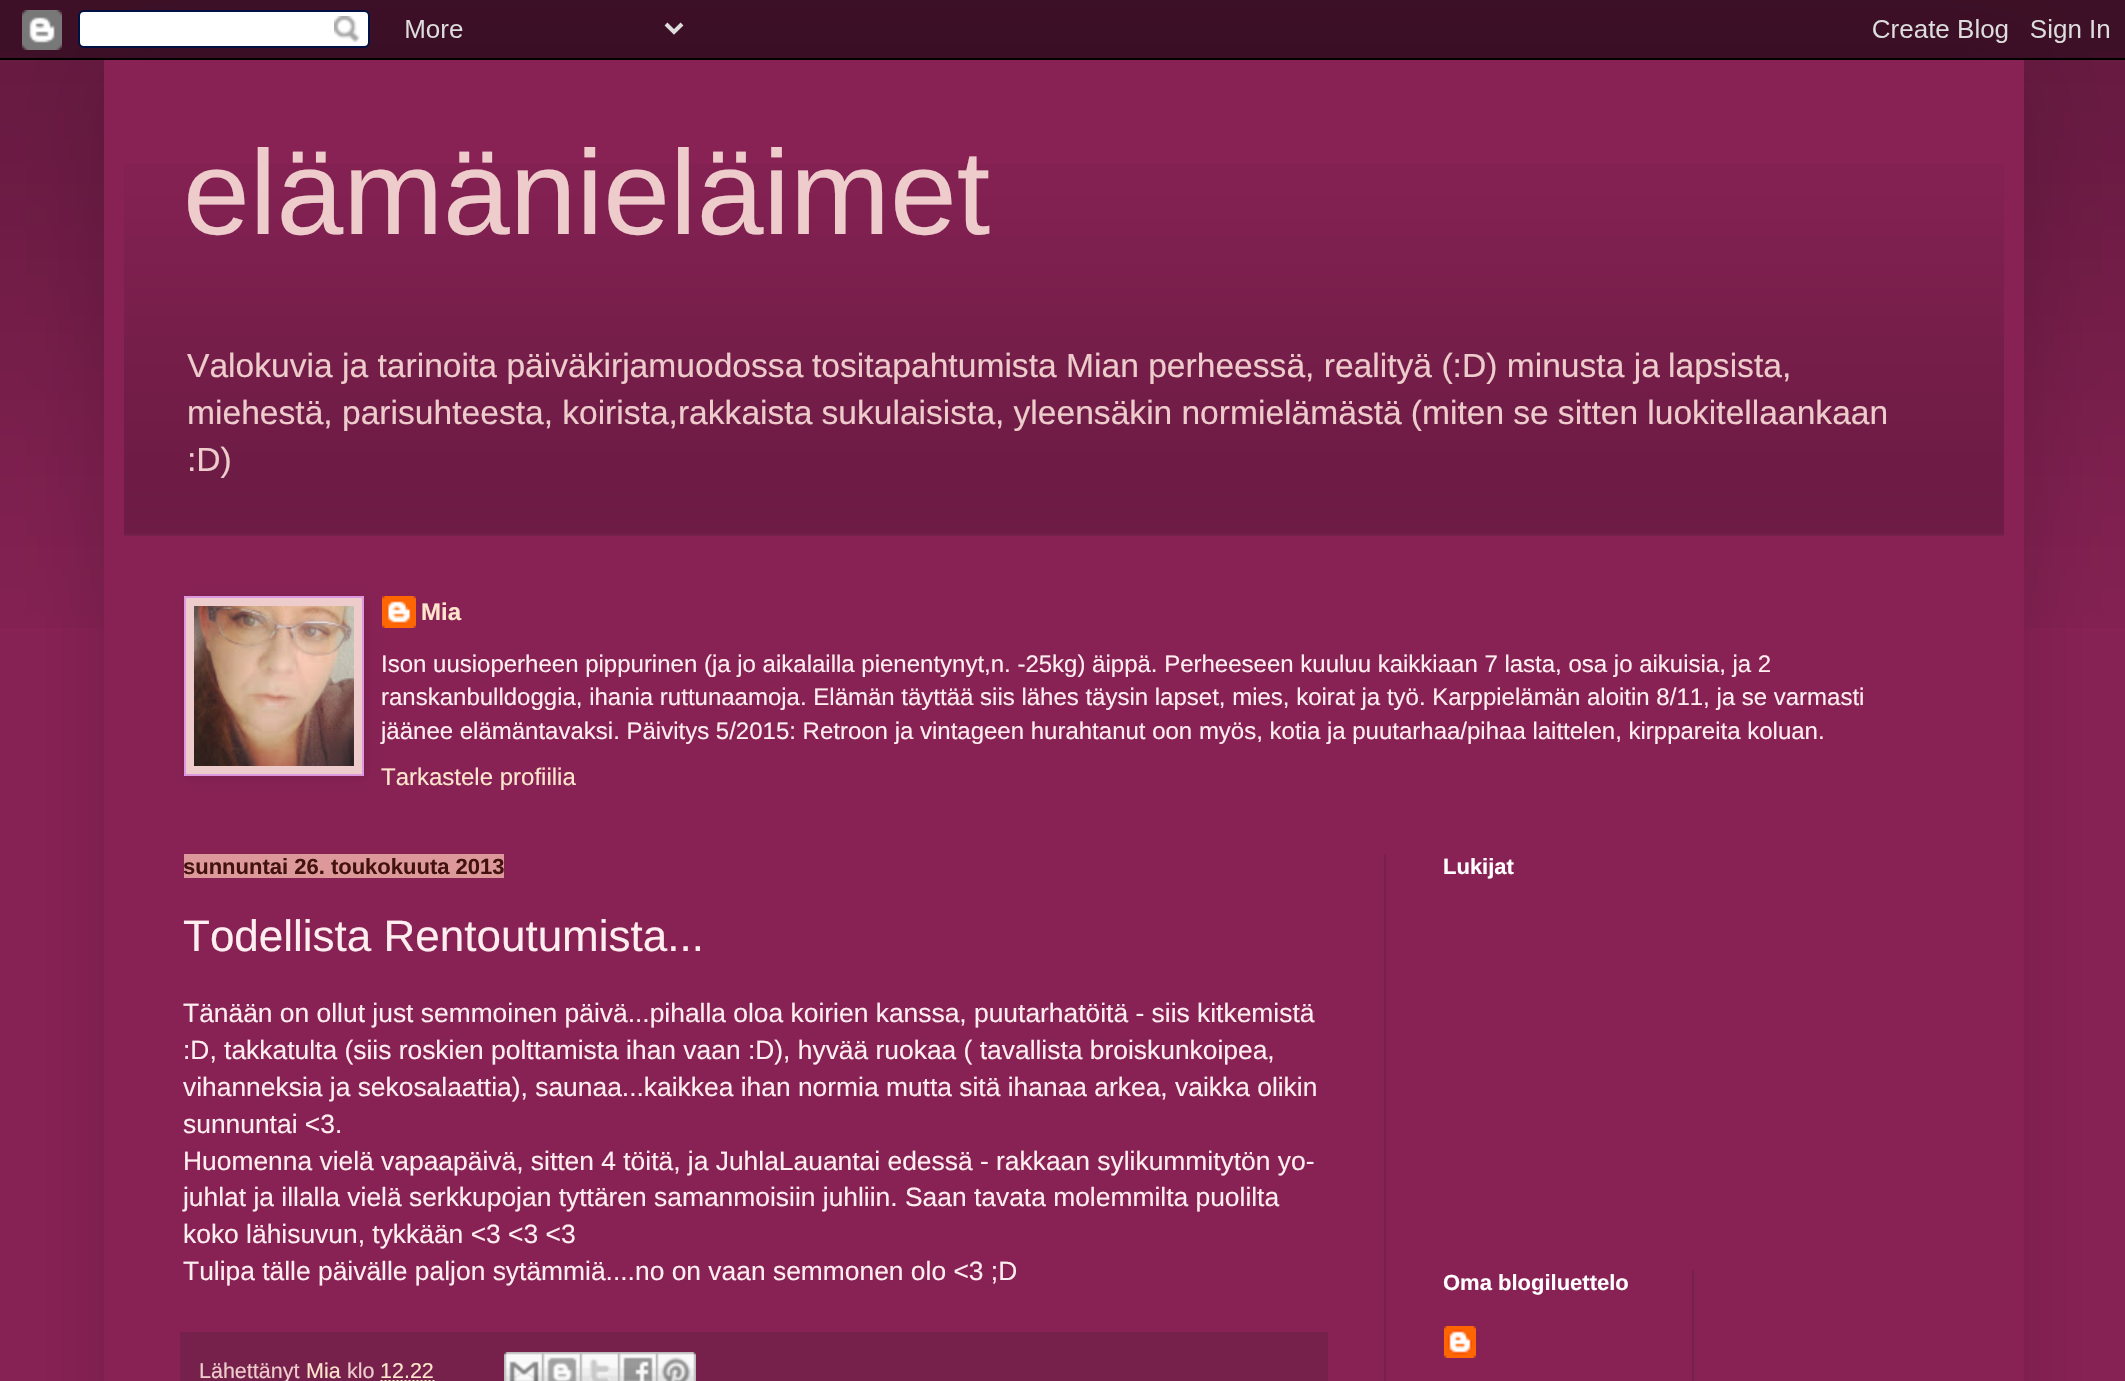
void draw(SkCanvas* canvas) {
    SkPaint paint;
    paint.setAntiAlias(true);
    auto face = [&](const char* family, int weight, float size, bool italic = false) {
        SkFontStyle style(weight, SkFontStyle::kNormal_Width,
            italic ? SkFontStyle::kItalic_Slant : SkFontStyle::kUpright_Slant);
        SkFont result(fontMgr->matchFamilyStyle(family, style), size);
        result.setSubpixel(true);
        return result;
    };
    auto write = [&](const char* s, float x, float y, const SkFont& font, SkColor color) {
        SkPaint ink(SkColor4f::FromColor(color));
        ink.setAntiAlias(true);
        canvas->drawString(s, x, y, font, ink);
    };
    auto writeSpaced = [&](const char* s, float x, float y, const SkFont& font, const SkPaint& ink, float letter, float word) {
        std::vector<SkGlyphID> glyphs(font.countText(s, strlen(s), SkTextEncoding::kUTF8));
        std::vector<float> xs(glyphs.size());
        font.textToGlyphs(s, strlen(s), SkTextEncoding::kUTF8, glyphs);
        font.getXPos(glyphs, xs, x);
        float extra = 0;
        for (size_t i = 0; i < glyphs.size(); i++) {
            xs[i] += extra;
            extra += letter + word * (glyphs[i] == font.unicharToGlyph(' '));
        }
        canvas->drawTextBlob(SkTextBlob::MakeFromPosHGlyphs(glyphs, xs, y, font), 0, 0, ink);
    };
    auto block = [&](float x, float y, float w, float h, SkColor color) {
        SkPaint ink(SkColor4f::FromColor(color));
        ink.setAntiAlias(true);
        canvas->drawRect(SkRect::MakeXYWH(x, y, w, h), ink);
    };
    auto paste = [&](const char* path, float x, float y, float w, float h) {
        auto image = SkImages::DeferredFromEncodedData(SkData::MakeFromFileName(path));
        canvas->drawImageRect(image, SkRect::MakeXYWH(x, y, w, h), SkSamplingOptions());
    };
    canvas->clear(SkColorSetRGB(136, 34, 85));
    paste("pic1.png", 0, 0, 2125, 628);
    paint.setColor(SkColorSetARGB(38, 0, 0, 0));
    paint.setMaskFilter(SkMaskFilter::MakeBlur(kNormal_SkBlurStyle, 40));
    canvas->drawRect(SkRect::MakeXYWH(104, 60, 1920, 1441), paint);
    paint.setMaskFilter(nullptr);
    paste("pic2.png", 0, 0, 2125, 60);
    block(104, 60, 1920, 1321, SkColorSetRGB(136, 34, 85));
    paste("pic3.png", 124, 164, 1880, 370);
    auto kFont1 = face("Liberation Sans", 400, 120);
    write("elämänieläimet", 183, 234, kFont1, SkColorSetRGB(238, 204, 204));
    auto kFont2 = face("Liberation Sans", 400, 33.6f);
    write("Valokuvia ja tarinoita päiväkirjamuodossa", 187, 377, kFont2, SkColorSetRGB(238, 204, 204));
    write("tositapahtumista Mian perheessä, realityä (:D) minusta ja", 812, 377, kFont2, SkColorSetRGB(238, 204, 204));
    write("lapsista,", 1668, 377, kFont2, SkColorSetRGB(238, 204, 204));
    write("miehestä,", 187, 424, kFont2, SkColorSetRGB(238, 204, 204));
    paint.setColor(SkColorSetRGB(238, 204, 204));
    writeSpaced("parisuhteesta, koirista,rakkaista sukulaisista, yleensäkin normielämästä (miten se sitten luokitellaankaan", 342, 424, kFont2, paint, 0, -0.25f);
    write(":D)", 187, 471, kFont2, SkColorSetRGB(238, 204, 204));
    block(124, 534, 1880, 2, SkColorSetRGB(118, 33, 76));
    paint.setColor(SkColorSetARGB(26, 0, 0, 0));
    paint.setMaskFilter(SkMaskFilter::MakeBlur(kNormal_SkBlurStyle, 5));
    canvas->drawRect(SkRect::MakeXYWH(186, 598, 180, 180), paint);
    paint.setMaskFilter(nullptr);
    paint.setColor(SkColorSetRGB(238, 204, 204));
    canvas->drawRect(SkRect::MakeXYWH(185, 597, 178, 178), paint);
    paint.setStyle(SkPaint::kStroke_Style);
    paint.setStrokeWidth(2);
    paint.setColor(SkColorSetRGB(221, 153, 221));
    canvas->drawRect(SkRect::MakeXYWH(185, 597, 178, 178), paint);
    paste("pic4.png", 194, 606, 160, 160);
    paste("pic5.png", 382, 596, 34, 32);
    auto kFont3 = face("Liberation Sans", 700, 24);
    write("Mia", 421, 620, kFont3, SkColorSetRGB(255, 229, 204));
    auto kFont4 = face("Liberation Sans", 400, 24);
    write("Ison uusioperheen pippurinen (ja jo aikalailla pienentynyt,n. -25kg) äippä. Perheeseen kuuluu kaikkiaan 7 lasta, osa jo aikuisia, ja 2", 381, 672, kFont4, SkColorSetRGB(255, 238, 239));
    write("ranskanbulldoggia, ihania ruttunaamoja. Elämän täyttää siis lähes täysin lapset, mies, koirat ja työ. Karppielämän aloitin 8/11, ja se varmasti", 381, 705, kFont4, SkColorSetRGB(255, 238, 239));
    write("jäänee elämäntavaksi. Päivitys 5/2015: Retroon ja vintageen hurahtanut oon myös, kotia ja puutarhaa/pihaa laittelen, kirppareita koluan.", 381, 739, kFont4, SkColorSetRGB(255, 238, 239));
    write("Tarkastele profiilia", 381, 785, kFont4, SkColorSetRGB(255, 229, 204));
    block(1384, 854, 2, 527, SkColorSetRGB(118, 33, 76));
    block(184, 854, 320, 24, SkColorSetRGB(221, 153, 153));
    auto kFont5 = face("Liberation Sans", 700, 22);
    write("sunnuntai 26. toukokuuta 2013", 183, 874, kFont5, SkColorSetRGB(68, 17, 17));
    auto kFont6 = face("Liberation Sans", 400, 44);
    write("Todellista Rentoutumista...", 183, 951, kFont6, SkColorSetRGB(255, 238, 239));
    auto kFont7 = face("Liberation Sans", 400, 26.4f);
    write("Tänään on ollut just semmoinen päivä...pihalla oloa koirien kanssa, puutarhatöitä - siis kitkemistä", 183, 1022, kFont7, SkColorSetRGB(255, 238, 239));
    write(":D, takkatulta (siis roskien polttamista ihan vaan :D), hyvää ruokaa ( tavallista broiskunkoipea,", 183, 1059, kFont7, SkColorSetRGB(255, 238, 239));
    write("vihanneksia ja sekosalaattia), saunaa...kaikkea ihan normia mutta sitä ihanaa arkea, vaikka olikin", 183, 1096, kFont7, SkColorSetRGB(255, 238, 239));
    write("sunnuntai <3.", 183, 1133, kFont7, SkColorSetRGB(255, 238, 239));
    write("Huomenna vielä vapaapäivä, sitten 4 töitä, ja JuhlaLauantai edessä - rakkaan sylikummitytön yo-", 183, 1170, kFont7, SkColorSetRGB(255, 238, 239));
    write("juhlat ja illalla vielä serkkupojan tyttären samanmoisiin juhliin. Saan tavata molemmilta puolilta", 183, 1206, kFont7, SkColorSetRGB(255, 238, 239));
    write("koko lähisuvun, tykkään <3 <3 <3", 183, 1243, kFont7, SkColorSetRGB(255, 238, 239));
    write("Tulipa tälle päivälle paljon sytämmiä....no on vaan semmonen olo <3 ;D", 183, 1280, kFont7, SkColorSetRGB(255, 238, 239));
    block(180, 1332, 1148, 49, SkColorSetRGB(118, 33, 76));
    auto kFont8 = face("Liberation Sans", 400, 21.5f);
    write("Lähettänyt", 199, 1378, kFont8, SkColorSetRGB(238, 204, 204));
    write("Mia", 306, 1378, kFont8, SkColorSetRGB(255, 229, 204));
    write("klo", 347, 1378, kFont8, SkColorSetRGB(238, 204, 204));
    write("12.22", 380, 1378, kFont8, SkColorSetRGB(255, 229, 204));
    paint.setColor(SkColorSetRGB(255, 229, 204));
    paint.setPathEffect(SkDashPathEffect::Make({{2, 2}}, 0));
    canvas->drawPath(SkPathBuilder().moveTo(380.5f, 1381).lineTo(434.5f, 1381).detach(), paint);
    paint.setPathEffect(nullptr);
    paste("pic6.png", 504, 1352, 38, 29);
    paste("pic7.png", 542, 1352, 38, 29);
    paste("pic8.png", 580, 1352, 38, 29);
    paste("pic9.png", 618, 1352, 38, 29);
    paste("pic10.png", 656, 1352, 40, 29);
    write("Lukijat", 1443, 874, kFont5, SK_ColorWHITE);
    write("Oma blogiluettelo", 1443, 1290, kFont5, SK_ColorWHITE);
    paste("pic11.png", 1444, 1326, 32, 32);
    block(1692, 1270, 2, 111, SkColorSetRGB(118, 33, 76));
}
